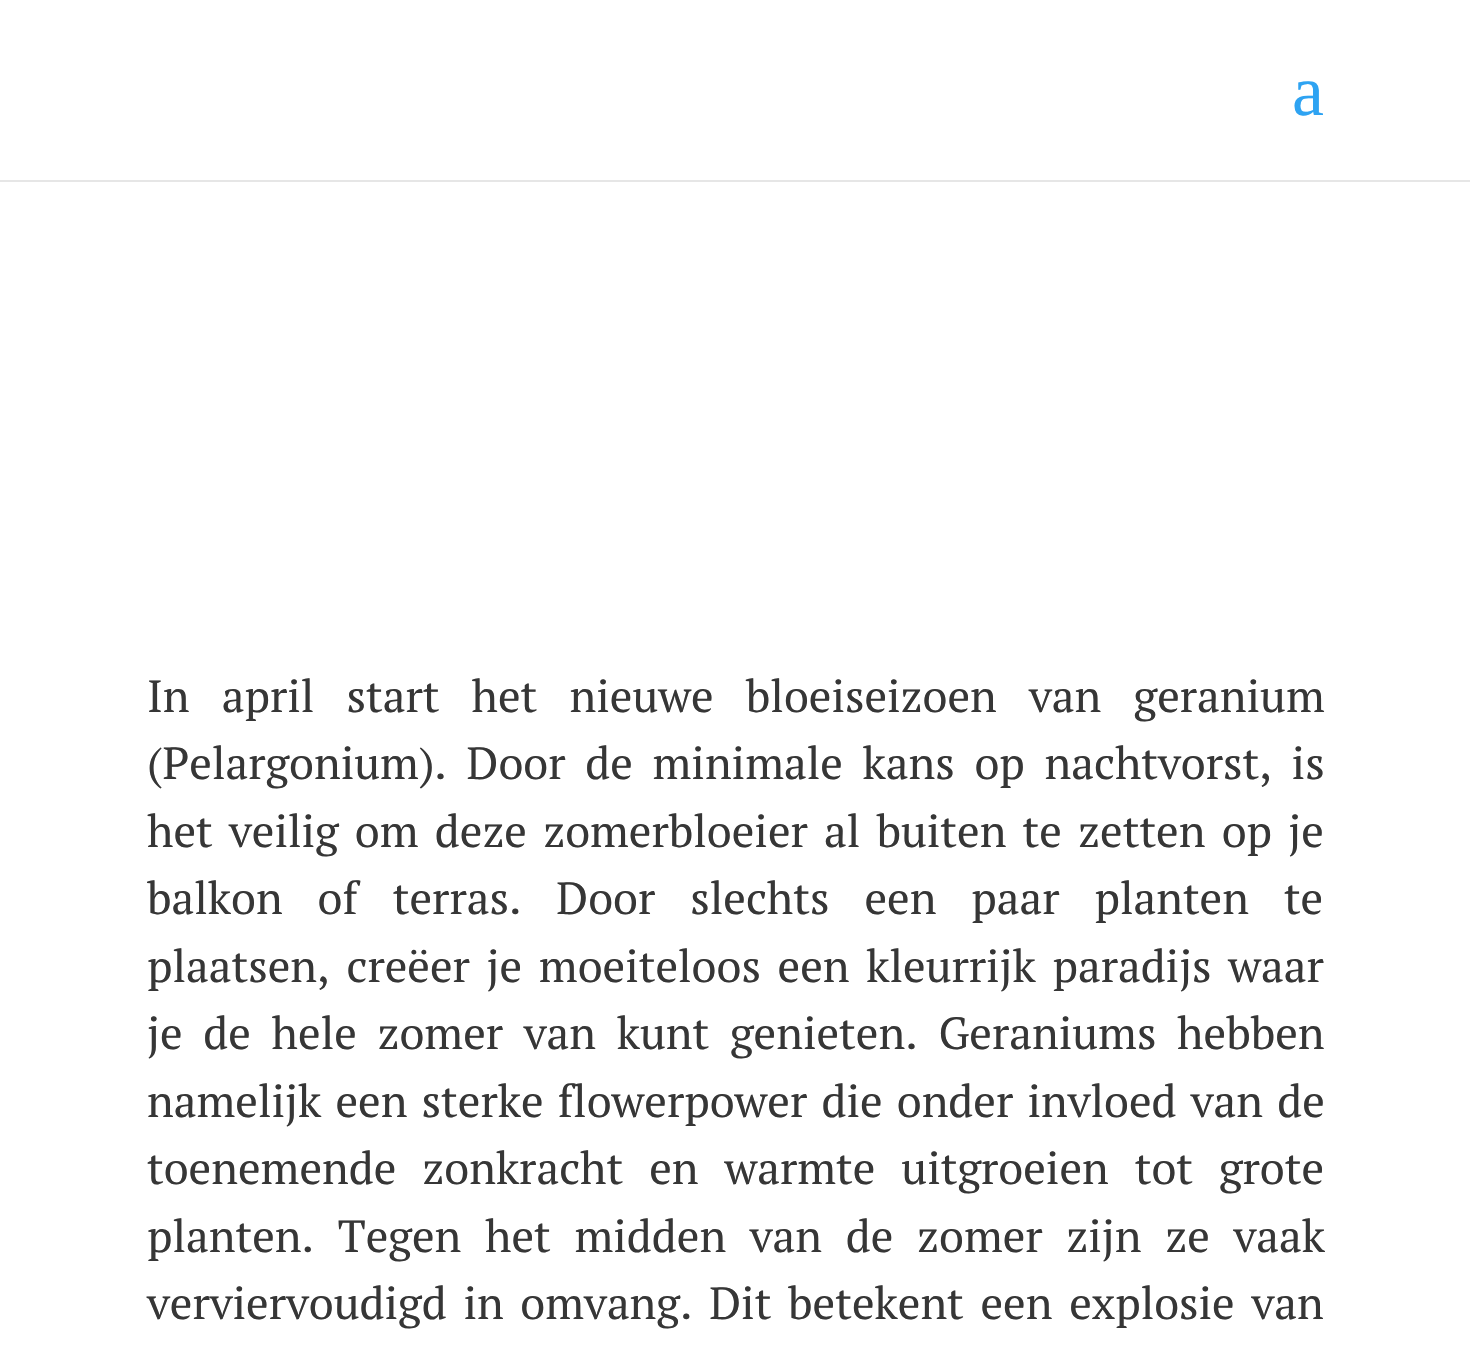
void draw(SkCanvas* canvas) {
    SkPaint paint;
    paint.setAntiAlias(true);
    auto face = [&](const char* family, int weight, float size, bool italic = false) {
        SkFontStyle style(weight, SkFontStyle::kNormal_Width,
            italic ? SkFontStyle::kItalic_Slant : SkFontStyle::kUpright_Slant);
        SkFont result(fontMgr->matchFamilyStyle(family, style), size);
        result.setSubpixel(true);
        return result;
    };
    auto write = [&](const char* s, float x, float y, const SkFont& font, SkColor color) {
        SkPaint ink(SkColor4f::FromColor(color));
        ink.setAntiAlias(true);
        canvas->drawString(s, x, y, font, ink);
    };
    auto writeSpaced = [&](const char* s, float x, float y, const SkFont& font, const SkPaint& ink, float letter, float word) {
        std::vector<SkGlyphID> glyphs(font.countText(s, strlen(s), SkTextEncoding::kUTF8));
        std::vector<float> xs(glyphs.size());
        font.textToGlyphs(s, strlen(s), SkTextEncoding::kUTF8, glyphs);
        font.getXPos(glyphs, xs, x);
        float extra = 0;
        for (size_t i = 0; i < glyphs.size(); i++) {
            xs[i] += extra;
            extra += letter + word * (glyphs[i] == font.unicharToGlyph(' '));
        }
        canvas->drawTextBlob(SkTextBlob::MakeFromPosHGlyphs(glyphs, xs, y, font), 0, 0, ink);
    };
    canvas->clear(SK_ColorWHITE);
    paint.setColor(SkColorSetRGB(230, 230, 230));
    canvas->drawPath(SkPathBuilder().moveTo(0, 180).lineTo(0, 182).lineTo(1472, 182).lineTo(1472, 2).lineTo(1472, 180).close().detach(), paint);
    auto kFont1 = face("Liberation Serif", 400, 72);
    write("a", 1292, 115, kFont1, SkColorSetRGB(46, 163, 242));
    auto kFont2 = face("PT Serif", 400, 45);
    paint.setColor(SkColorSetRGB(54, 54, 54));
    writeSpaced("In april start het nieuwe bloeiseizoen van geranium", 147, 712, kFont2, paint, 0, 21.25f);
    writeSpaced("(Pelargonium). Door de minimale kans op nachtvorst, is", 147, 779, kFont2, paint, 0, 8.75f);
    writeSpaced("het veilig om deze zomerbloeier al buiten te zetten op je", 147, 847, kFont2, paint, 0, 5.25f);
    writeSpaced("balkon of terras. Door slechts een paar planten te", 147, 914, kFont2, paint, 0, 24);
    writeSpaced("plaatsen, creëer je moeiteloos een kleurrijk paradijs waar", 147, 982, kFont2, paint, 0, 5.75f);
    writeSpaced("je de hele zomer van kunt genieten. Geraniums hebben", 147, 1049, kFont2, paint, 0, 9.75f);
    writeSpaced("namelijk een sterke flowerpower die onder invloed van de", 147, 1117, kFont2, paint, 0, 3.25f);
    writeSpaced("toenemende zonkracht en warmte uitgroeien tot grote", 147, 1184, kFont2, paint, 0, 15);
    writeSpaced("planten. Tegen het midden van de zomer zijn ze vaak", 147, 1252, kFont2, paint, 0, 12.75f);
    writeSpaced("verviervoudigd in omvang. Dit betekent een explosie van", 147, 1319, kFont2, paint, 0, 5.75f);
}
